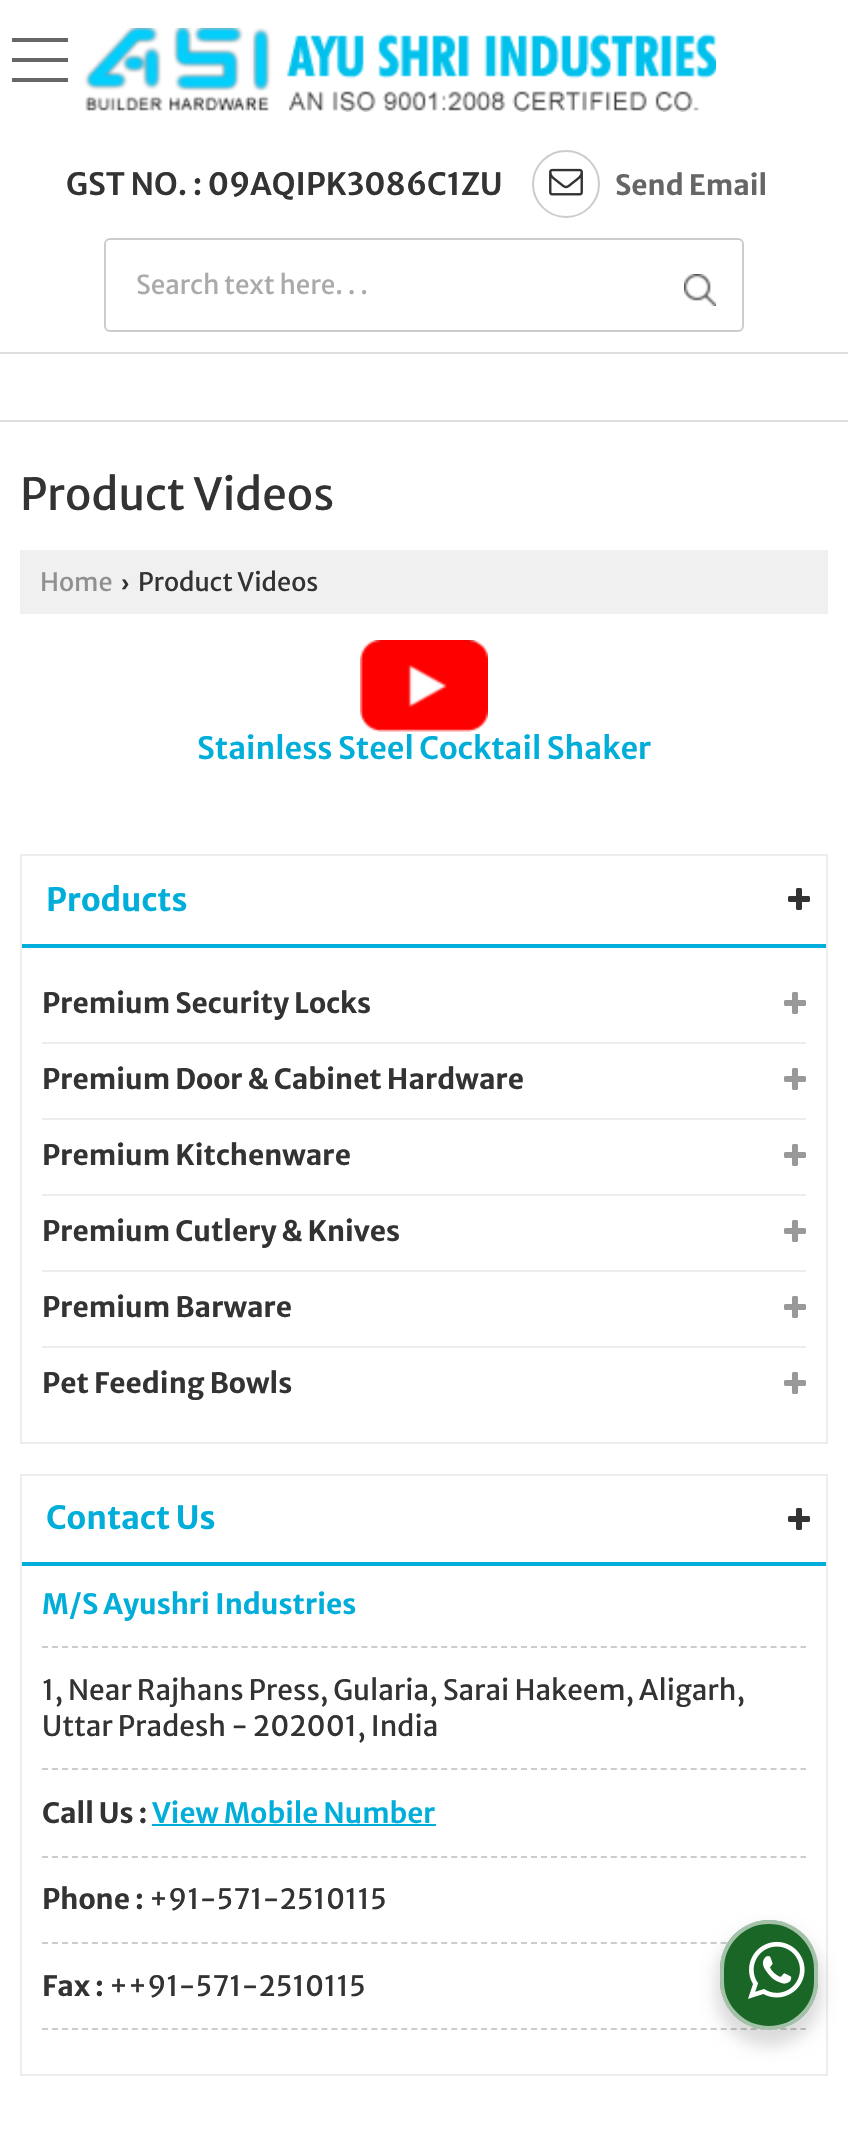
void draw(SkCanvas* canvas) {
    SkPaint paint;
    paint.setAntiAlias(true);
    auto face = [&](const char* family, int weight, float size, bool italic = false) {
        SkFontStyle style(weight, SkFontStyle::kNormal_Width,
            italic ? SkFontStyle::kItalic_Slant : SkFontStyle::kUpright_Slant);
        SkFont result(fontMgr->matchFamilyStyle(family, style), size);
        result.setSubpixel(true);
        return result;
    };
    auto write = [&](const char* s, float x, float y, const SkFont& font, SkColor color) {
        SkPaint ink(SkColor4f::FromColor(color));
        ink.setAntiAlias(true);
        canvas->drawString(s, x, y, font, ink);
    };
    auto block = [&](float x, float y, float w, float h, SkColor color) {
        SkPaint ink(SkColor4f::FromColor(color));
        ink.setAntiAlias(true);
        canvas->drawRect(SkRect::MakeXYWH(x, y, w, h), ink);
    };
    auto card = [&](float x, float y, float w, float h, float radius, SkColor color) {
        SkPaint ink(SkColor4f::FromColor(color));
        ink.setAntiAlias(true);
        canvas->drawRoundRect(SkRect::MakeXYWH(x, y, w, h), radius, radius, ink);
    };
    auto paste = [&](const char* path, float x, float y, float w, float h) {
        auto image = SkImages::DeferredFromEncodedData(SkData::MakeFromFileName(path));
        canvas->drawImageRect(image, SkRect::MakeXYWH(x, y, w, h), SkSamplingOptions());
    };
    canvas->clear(SK_ColorWHITE);
    block(0, 352, 848, 2, SkColorSetRGB(222, 222, 222));
    block(0, 420, 848, 2, SkColorSetRGB(222, 222, 222));
    block(12, 58, 56, 4, SkColorSetRGB(102, 102, 102));
    block(12, 38, 56, 4, SkColorSetRGB(102, 102, 102));
    block(12, 78, 56, 4, SkColorSetRGB(102, 102, 102));
    paste("pic1.png", 84, 28, 632, 84);
    auto kFont1 = face("Merriweather Sans", 600, 30.75f);
    write("GST NO. : 09AQIPK3086C1ZU", 66, 195, kFont1, SkColorSetRGB(51, 51, 51));
    paint.setStyle(SkPaint::kStroke_Style);
    paint.setStrokeWidth(2);
    paint.setColor(SkColorSetRGB(204, 204, 204));
    canvas->drawCircle(566, 184, 33, paint);
    paste("pic2.png", 549, 168, 34, 28);
    auto kFont2 = face("Merriweather Sans", 700, 28);
    write("Send Email", 615, 195, kFont2, SkColorSetRGB(102, 102, 102));
    canvas->drawRoundRect(SkRect::MakeXYWH(105, 239, 638, 92), 5, 5, paint);
    auto kFont3 = face("Merriweather Sans", 400, 26);
    write("Search text here. . .", 136, 294, kFont3, SkColorSetRGB(170, 170, 170));
    paste("pic3.png", 684, 274, 32, 32);
    auto kFont4 = face("Merriweather Sans", 400, 44);
    write("Product Videos", 20, 510, kFont4, SkColorSetRGB(51, 51, 51));
    block(20, 550, 808, 64, SkColorSetRGB(240, 240, 240));
    auto kFont5 = face("Merriweather Sans", 400, 25.25f);
    write("Home", 40, 591, kFont5, SkColorSetRGB(144, 144, 144));
    auto kFont6 = face("Liberation Sans", 700, 25.25f);
    write("›", 121, 591, kFont6, SkColorSetRGB(51, 51, 51));
    write("Product Videos", 138, 591, kFont5, SkColorSetRGB(51, 51, 51));
    paste("pic4.png", 360, 640, 128, 92);
    write("Stainless Steel Cocktail Shaker", 197, 759, kFont1, SkColorSetRGB(0, 174, 217));
    paint.setColor(SkColorSetRGB(237, 237, 237));
    canvas->drawRect(SkRect::MakeXYWH(21, 855, 806, 588), paint);
    block(22, 944, 804, 4, SkColorSetRGB(0, 174, 217));
    auto kFont7 = face("Merriweather Sans", 700, 32);
    write("Products", 46, 911, kFont7, SkColorSetRGB(0, 174, 217));
    paste("pic5.png", 788, 888, 22, 22);
    block(42, 1042, 764, 2, SkColorSetRGB(237, 237, 237));
    write("Premium Security Locks", 42, 1013, kFont2, SkColorSetRGB(51, 51, 51));
    paste("pic6.png", 784, 992, 22, 22);
    block(42, 1118, 764, 2, SkColorSetRGB(237, 237, 237));
    write("Premium Door & Cabinet Hardware", 42, 1089, kFont2, SkColorSetRGB(51, 51, 51));
    paste("pic6.png", 784, 1068, 22, 22);
    block(42, 1194, 764, 2, SkColorSetRGB(237, 237, 237));
    write("Premium Kitchenware", 42, 1165, kFont2, SkColorSetRGB(51, 51, 51));
    paste("pic6.png", 784, 1144, 22, 22);
    block(42, 1270, 764, 2, SkColorSetRGB(237, 237, 237));
    write("Premium Cutlery & Knives", 42, 1241, kFont2, SkColorSetRGB(51, 51, 51));
    paste("pic6.png", 784, 1220, 22, 22);
    block(42, 1346, 764, 2, SkColorSetRGB(237, 237, 237));
    write("Premium Barware", 42, 1317, kFont2, SkColorSetRGB(51, 51, 51));
    paste("pic6.png", 784, 1296, 22, 22);
    write("Pet Feeding Bowls", 42, 1393, kFont2, SkColorSetRGB(51, 51, 51));
    paste("pic6.png", 784, 1372, 22, 22);
    canvas->drawRect(SkRect::MakeXYWH(21, 1475, 806, 600), paint);
    block(22, 1562, 804, 4, SkColorSetRGB(0, 174, 217));
    write("Contact Us", 46, 1529, kFont7, SkColorSetRGB(0, 174, 217));
    paste("pic5.png", 788, 1508, 22, 22);
    write("M/S Ayushri Industries", 42, 1614, kFont2, SkColorSetRGB(0, 174, 217));
    paint.setColor(SkColorSetRGB(204, 204, 204));
    paint.setPathEffect(SkDashPathEffect::Make({{6, 3.98f}}, 0));
    canvas->drawPath(SkPathBuilder().moveTo(42, 1647).lineTo(806, 1647).detach(), paint);
    paint.setPathEffect(nullptr);
    auto kFont8 = face("Merriweather Sans", 400, 28);
    write("1, Near Rajhans Press, Gularia, Sarai Hakeem, Aligarh,", 42, 1700, kFont8, SkColorSetRGB(51, 51, 51));
    write("Uttar Pradesh - 202001, India", 42, 1736, kFont8, SkColorSetRGB(51, 51, 51));
    paint.setPathEffect(SkDashPathEffect::Make({{6, 3.98f}}, 0));
    canvas->drawPath(SkPathBuilder().moveTo(42, 1769).lineTo(806, 1769).detach(), paint);
    paint.setPathEffect(nullptr);
    write("Call Us :", 42, 1823, kFont2, SkColorSetRGB(51, 51, 51));
    auto kFont9 = face("Merriweather Sans", 600, 28);
    write("View Mobile Number", 152, 1823, kFont9, SkColorSetRGB(0, 174, 217));
    block(152, 1824, 284, 2, SkColorSetRGB(0, 174, 217));
    paint.setPathEffect(SkDashPathEffect::Make({{6, 3.98f}}, 0));
    canvas->drawPath(SkPathBuilder().moveTo(42, 1857).lineTo(806, 1857).detach(), paint);
    paint.setPathEffect(nullptr);
    write("Phone :", 42, 1909, kFont2, SkColorSetRGB(51, 51, 51));
    write("+91-571-2510115", 149, 1909, kFont8, SkColorSetRGB(51, 51, 51));
    paint.setPathEffect(SkDashPathEffect::Make({{6, 3.98f}}, 0));
    canvas->drawPath(SkPathBuilder().moveTo(42, 1943).lineTo(806, 1943).detach(), paint);
    paint.setPathEffect(nullptr);
    write("Fax :", 42, 1996, kFont2, SkColorSetRGB(51, 51, 51));
    write("++91-571-2510115", 109, 1996, kFont8, SkColorSetRGB(51, 51, 51));
    paint.setPathEffect(SkDashPathEffect::Make({{6, 3.98f}}, 0));
    canvas->drawPath(SkPathBuilder().moveTo(42, 2029).lineTo(806, 2029).detach(), paint);
    paint.setPathEffect(nullptr);
    paint.setStyle(SkPaint::kFill_Style);
    paint.setColor(SkColorSetARGB(36, 0, 0, 0));
    paint.setMaskFilter(SkMaskFilter::MakeBlur(kNormal_SkBlurStyle, 8));
    canvas->drawRoundRect(SkRect::MakeXYWH(716, 1928, 106, 118), 53, 53, paint);
    paint.setMaskFilter(nullptr);
    card(720, 1920, 98, 110, 49, SkColorSetRGB(25, 102, 38));
    paint.setStyle(SkPaint::kStroke_Style);
    paint.setStrokeWidth(4);
    paint.setColor(SkColorSetARGB(153, 255, 255, 255));
    canvas->drawRoundRect(SkRect::MakeXYWH(722, 1922, 94, 106), 47, 47, paint);
    paste("pic7.png", 748, 1941, 57, 58);
}
